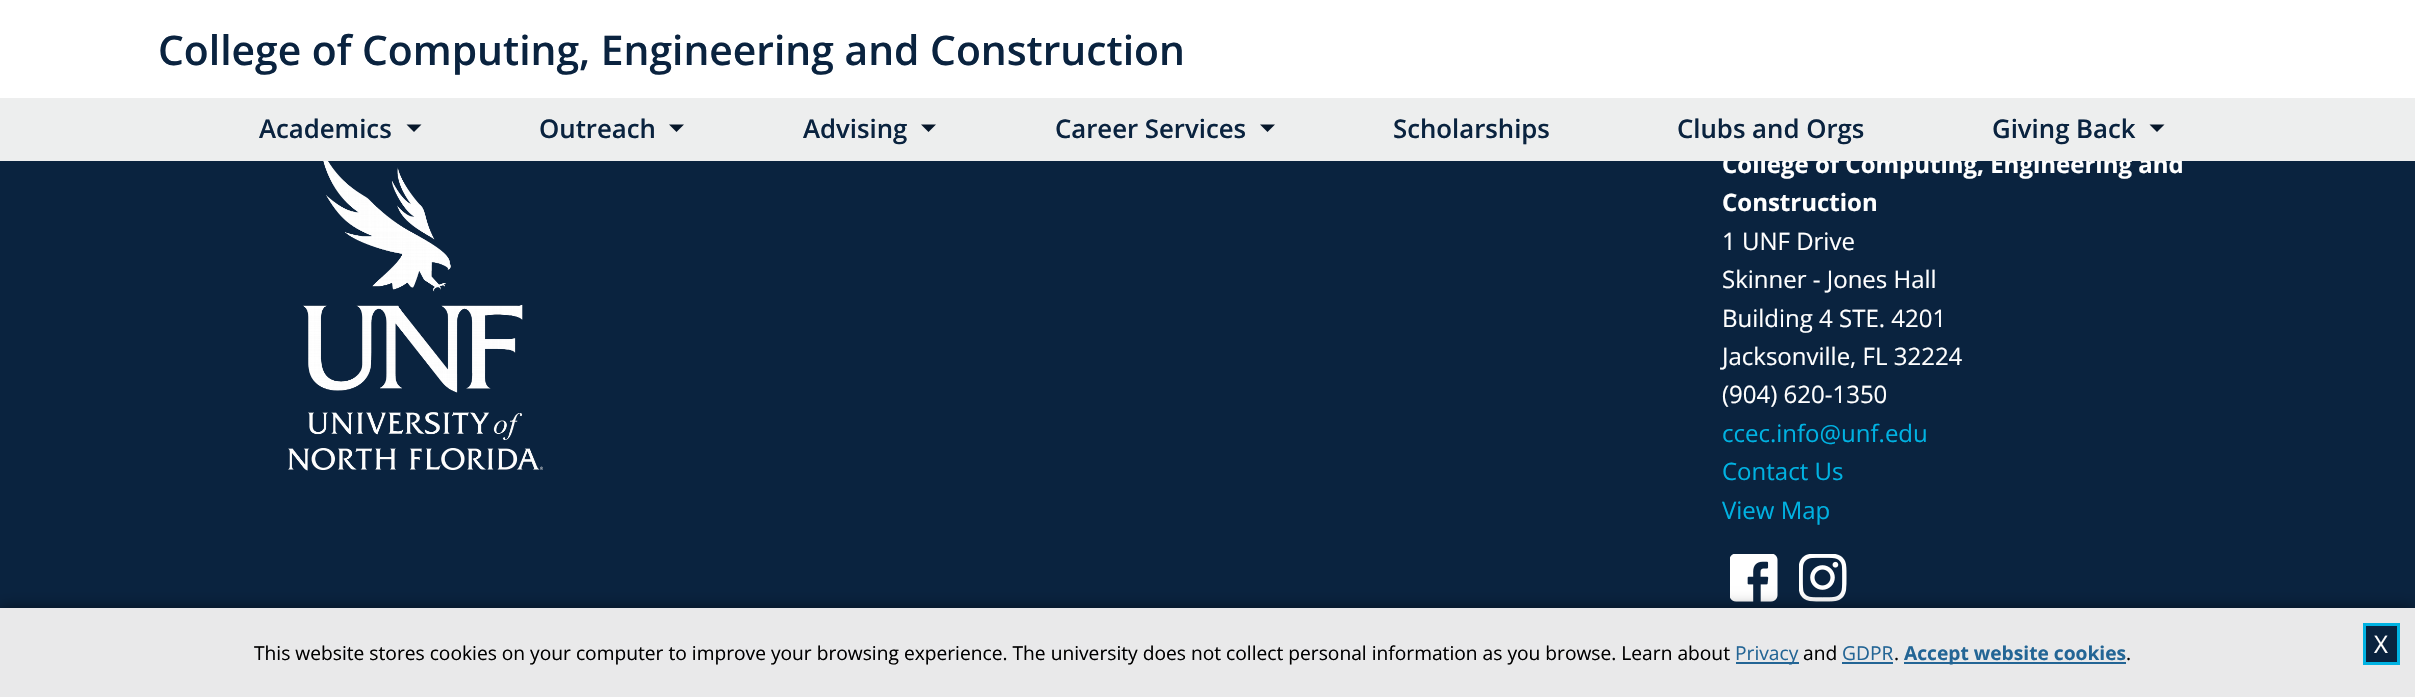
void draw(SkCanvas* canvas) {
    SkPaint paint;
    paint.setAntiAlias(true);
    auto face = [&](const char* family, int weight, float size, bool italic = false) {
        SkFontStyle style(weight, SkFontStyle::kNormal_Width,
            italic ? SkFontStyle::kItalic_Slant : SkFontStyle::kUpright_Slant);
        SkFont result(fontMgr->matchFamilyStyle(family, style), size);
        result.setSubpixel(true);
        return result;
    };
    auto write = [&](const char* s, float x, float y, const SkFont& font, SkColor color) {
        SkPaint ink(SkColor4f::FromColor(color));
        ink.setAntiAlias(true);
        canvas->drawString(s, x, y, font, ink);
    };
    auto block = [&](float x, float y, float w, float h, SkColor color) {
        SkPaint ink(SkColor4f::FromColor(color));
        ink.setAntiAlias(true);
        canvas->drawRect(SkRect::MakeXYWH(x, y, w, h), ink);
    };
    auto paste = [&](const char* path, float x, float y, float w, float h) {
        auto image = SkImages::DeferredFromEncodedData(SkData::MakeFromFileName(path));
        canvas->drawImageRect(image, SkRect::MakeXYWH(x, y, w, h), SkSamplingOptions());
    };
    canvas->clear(SkColorSetRGB(10, 35, 63));
    block(0, 0, 2415, 98, SK_ColorWHITE);
    auto kFont1 = face("Open Sans", 600, 40.8f);
    write("College of Computing, Engineering and Construction", 158, 65, kFont1, SkColorSetRGB(10, 35, 63));
    auto kFont2 = face("Open Sans", 700, 24);
    write("College of Computing, Engineering and", 1722, 173, kFont2, SK_ColorWHITE);
    block(0, 98, 2415, 63, SkColorSetRGB(237, 238, 238));
    auto kFont3 = face("Open Sans", 600, 25.75f);
    write("Academics", 259, 138, kFont3, SkColorSetRGB(10, 35, 63));
    paint.setColor(SkColorSetRGB(7, 23, 42));
    canvas->drawPath(SkPathBuilder().moveTo(406.5f, 124.5f).lineTo(421.5f, 124.5f).lineTo(414, 132).close().detach(), paint);
    write("Outreach", 539, 138, kFont3, SkColorSetRGB(10, 35, 63));
    canvas->drawPath(SkPathBuilder().moveTo(669, 124.5f).lineTo(684, 124.5f).lineTo(676.5f, 132).close().detach(), paint);
    write("Advising", 803, 138, kFont3, SkColorSetRGB(10, 35, 63));
    canvas->drawPath(SkPathBuilder().moveTo(921, 124.5f).lineTo(936, 124.5f).lineTo(928.5f, 132).close().detach(), paint);
    write("Career Services", 1055, 138, kFont3, SkColorSetRGB(10, 35, 63));
    canvas->drawPath(SkPathBuilder().moveTo(1260, 124.5f).lineTo(1275, 124.5f).lineTo(1267.5f, 132).close().detach(), paint);
    write("Scholarships", 1393, 138, kFont3, SkColorSetRGB(10, 35, 63));
    write("Clubs and Orgs", 1677, 138, kFont3, SkColorSetRGB(10, 35, 63));
    write("Giving Back", 1992, 138, kFont3, SkColorSetRGB(10, 35, 63));
    canvas->drawPath(SkPathBuilder().moveTo(2149.5f, 124.5f).lineTo(2164.5f, 124.5f).lineTo(2157, 132).close().detach(), paint);
    paste("pic1.png", 288, 161, 255, 310);
    write("Construction", 1722, 211, kFont2, SK_ColorWHITE);
    auto kFont4 = face("Open Sans", 400, 24);
    write("1 UNF Drive", 1722, 250, kFont4, SK_ColorWHITE);
    write("Skinner - Jones Hall", 1722, 288, kFont4, SK_ColorWHITE);
    write("Building 4 STE. 4201", 1722, 327, kFont4, SK_ColorWHITE);
    write("Jacksonville, FL 32224", 1722, 365, kFont4, SK_ColorWHITE);
    write("(904) 620-1350", 1722, 403, kFont4, SK_ColorWHITE);
    write("ccec.info@unf.edu", 1722, 442, kFont4, SkColorSetRGB(0, 178, 226));
    write("Contact Us", 1722, 480, kFont4, SkColorSetRGB(0, 178, 226));
    write("View Map", 1722, 519, kFont4, SkColorSetRGB(0, 178, 226));
    paste("pic2.png", 1730, 554, 48, 48);
    paste("pic3.png", 1799, 554, 48, 48);
    paint.setColor(SkColorSetARGB(128, 0, 0, 0));
    paint.setMaskFilter(SkMaskFilter::MakeBlur(kNormal_SkBlurStyle, 7.5f));
    canvas->drawRect(SkRect::MakeXYWH(0, 608, 2415, 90), paint);
    paint.setMaskFilter(nullptr);
    block(0, 608, 2415, 89, SkColorSetRGB(233, 233, 234));
    auto kFont5 = face("Open Sans", 400, 19.2f);
    write("This website stores cookies on your computer to improve your browsing experience. The university does not collect personal information as you browse. Learn about", 254, 660, kFont5, SK_ColorBLACK);
    block(1736, 662, 63, 2, SkColorSetRGB(35, 101, 149));
    write("Privacy", 1735, 660, kFont5, SkColorSetRGB(35, 101, 149));
    write("and", 1803, 660, kFont5, SK_ColorBLACK);
    write("GDPR", 1842, 660, kFont5, SkColorSetRGB(35, 101, 149));
    block(1842, 662, 51, 2, SkColorSetRGB(35, 101, 149));
    write(".", 1894, 660, kFont5, SK_ColorBLACK);
    block(1904, 662, 222, 2, SkColorSetRGB(35, 101, 149));
    auto kFont6 = face("Open Sans", 700, 19.2f);
    write("Accept website cookies", 1904, 660, kFont6, SkColorSetRGB(35, 101, 149));
    write(".", 2126, 660, kFont5, SK_ColorBLACK);
    paint.setColor(SkColorSetRGB(10, 35, 63));
    canvas->drawRect(SkRect::MakeXYWH(2364.5f, 624.5f, 34, 39), paint);
    paint.setStyle(SkPaint::kStroke_Style);
    paint.setStrokeWidth(3);
    paint.setColor(SkColorSetRGB(0, 178, 226));
    canvas->drawRect(SkRect::MakeXYWH(2364.5f, 624.5f, 34, 39), paint);
    write("X", 2374, 653, kFont4, SK_ColorWHITE);
}
